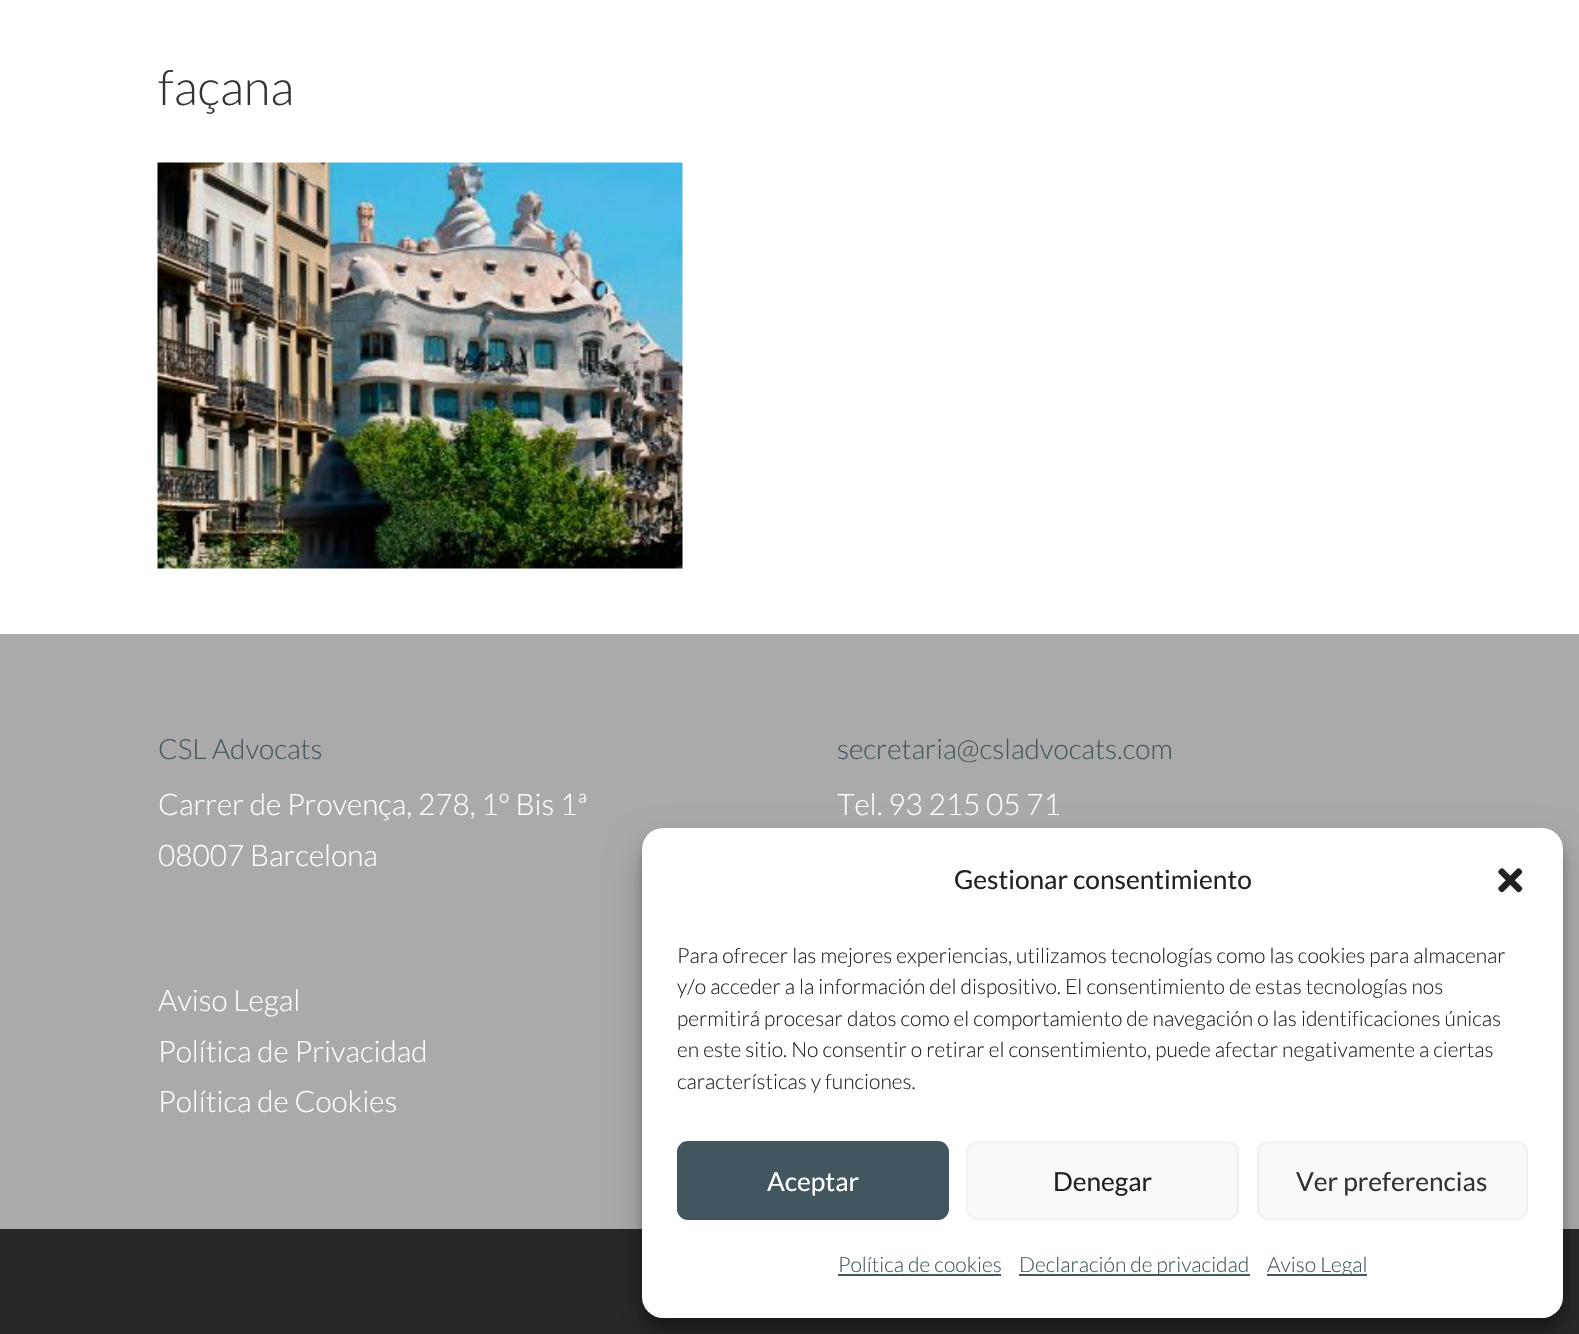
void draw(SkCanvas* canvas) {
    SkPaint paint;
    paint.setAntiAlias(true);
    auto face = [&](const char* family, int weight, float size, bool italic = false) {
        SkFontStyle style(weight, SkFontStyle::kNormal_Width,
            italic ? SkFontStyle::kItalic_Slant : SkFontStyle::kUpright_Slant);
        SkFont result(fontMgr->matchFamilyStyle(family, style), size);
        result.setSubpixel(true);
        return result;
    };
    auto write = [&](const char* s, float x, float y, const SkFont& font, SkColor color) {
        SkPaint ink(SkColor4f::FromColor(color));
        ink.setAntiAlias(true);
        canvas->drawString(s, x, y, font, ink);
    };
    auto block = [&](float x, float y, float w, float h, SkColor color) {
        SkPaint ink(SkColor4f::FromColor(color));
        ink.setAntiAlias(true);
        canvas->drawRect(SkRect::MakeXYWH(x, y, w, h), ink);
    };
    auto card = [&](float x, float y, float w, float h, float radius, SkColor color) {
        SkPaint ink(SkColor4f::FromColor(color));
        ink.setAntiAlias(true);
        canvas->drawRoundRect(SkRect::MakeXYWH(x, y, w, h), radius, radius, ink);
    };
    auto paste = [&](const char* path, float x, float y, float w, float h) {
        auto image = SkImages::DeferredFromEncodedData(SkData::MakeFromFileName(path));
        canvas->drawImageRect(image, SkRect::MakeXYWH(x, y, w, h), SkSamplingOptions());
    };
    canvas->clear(SK_ColorWHITE);
    auto kFont1 = face("Lato", 300, 49);
    write("façana", 158, 105, kFont1, SkColorSetRGB(51, 51, 51));
    paste("pic1.png", 157, 162, 526, 407);
    block(0, 634, 1579, 595, SkColorSetRGB(170, 170, 170));
    auto kFont2 = face("Lato", 300, 28);
    write("CSL Advocats", 158, 759, kFont2, SkColorSetRGB(66, 86, 95));
    auto kFont3 = face("Lato", 300, 29.75f);
    write("Carrer de Provença, 278, 1º Bis 1ª", 158, 815, kFont3, SK_ColorWHITE);
    write("08007 Barcelona", 158, 866, kFont3, SK_ColorWHITE);
    write("secretaria@csladvocats.com", 837, 759, kFont2, SkColorSetRGB(66, 86, 95));
    write("Tel. 93 215 05 71", 837, 815, kFont3, SK_ColorWHITE);
    write("Aviso Legal", 158, 1011, kFont3, SK_ColorWHITE);
    write("Política de Privacidad", 158, 1062, kFont3, SK_ColorWHITE);
    write("Política de Cookies", 158, 1112, kFont3, SK_ColorWHITE);
    block(0, 1229, 1579, 105, SkColorSetRGB(39, 39, 39));
    paint.setColor(SkColorSetARGB(59, 0, 0, 0));
    paint.setMaskFilter(SkMaskFilter::MakeBlur(kNormal_SkBlurStyle, 5));
    canvas->drawRoundRect(SkRect::MakeXYWH(642, 838, 921, 490), 21, 21, paint);
    paint.setMaskFilter(nullptr);
    paint.setColor(SkColorSetARGB(48, 0, 0, 0));
    paint.setMaskFilter(SkMaskFilter::MakeBlur(kNormal_SkBlurStyle, 17.5f));
    canvas->drawRoundRect(SkRect::MakeXYWH(642, 845, 921, 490), 21, 21, paint);
    paint.setMaskFilter(nullptr);
    card(642, 828, 921, 490, 21, SK_ColorWHITE);
    auto kFont4 = face("Lato", 400, 26.25f);
    write("Gestionar consentimiento", 954, 889, kFont4, SkColorSetRGB(34, 34, 34));
    paste("pic2.png", 1498, 868, 25, 25);
    auto kFont5 = face("Lato", 300, 21);
    write("Para ofrecer las mejores experiencias, utilizamos tecnologías como las cookies para almacenar", 677, 963, kFont5, SkColorSetRGB(34, 34, 34));
    write("y/o acceder a la información del dispositivo. El consentimiento de estas tecnologías nos", 677, 994, kFont5, SkColorSetRGB(34, 34, 34));
    write("permitirá procesar datos como el comportamiento de navegación o las identificaciones únicas", 677, 1026, kFont5, SkColorSetRGB(34, 34, 34));
    write("en este sitio. No consentir o retirar el consentimiento, puede afectar negativamente a ciertas", 677, 1057, kFont5, SkColorSetRGB(34, 34, 34));
    write("características y funciones.", 677, 1089, kFont5, SkColorSetRGB(34, 34, 34));
    paint.setColor(SkColorSetRGB(66, 86, 95));
    canvas->drawRoundRect(SkRect::MakeXYWH(678, 1142, 270, 77), 10, 10, paint);
    paint.setStyle(SkPaint::kStroke_Style);
    paint.setStrokeWidth(2);
    canvas->drawRoundRect(SkRect::MakeXYWH(678, 1142, 270, 77), 10, 10, paint);
    write("Aceptar", 767, 1191, kFont4, SK_ColorWHITE);
    paint.setStyle(SkPaint::kFill_Style);
    paint.setColor(SkColorSetRGB(249, 249, 249));
    canvas->drawRoundRect(SkRect::MakeXYWH(967, 1142, 271, 77), 10, 10, paint);
    paint.setStyle(SkPaint::kStroke_Style);
    paint.setColor(SkColorSetRGB(242, 242, 242));
    canvas->drawRoundRect(SkRect::MakeXYWH(967, 1142, 271, 77), 10, 10, paint);
    write("Denegar", 1053, 1191, kFont4, SkColorSetRGB(34, 34, 34));
    paint.setStyle(SkPaint::kFill_Style);
    paint.setColor(SkColorSetRGB(249, 249, 249));
    canvas->drawRoundRect(SkRect::MakeXYWH(1258, 1142, 269, 77), 10, 10, paint);
    paint.setStyle(SkPaint::kStroke_Style);
    paint.setColor(SkColorSetRGB(242, 242, 242));
    canvas->drawRoundRect(SkRect::MakeXYWH(1258, 1142, 269, 77), 10, 10, paint);
    write("Ver preferencias", 1296, 1191, kFont4, SkColorSetRGB(51, 51, 51));
    write("Política de cookies", 838, 1272, kFont5, SkColorSetRGB(66, 86, 95));
    block(838, 1274, 163, 2, SkColorSetRGB(66, 86, 95));
    block(1019, 1274, 231, 2, SkColorSetRGB(66, 86, 95));
    write("Declaración de privacidad", 1019, 1272, kFont5, SkColorSetRGB(66, 86, 95));
    block(1267, 1274, 100, 2, SkColorSetRGB(66, 86, 95));
    write("Aviso Legal", 1267, 1272, kFont5, SkColorSetRGB(66, 86, 95));
}
